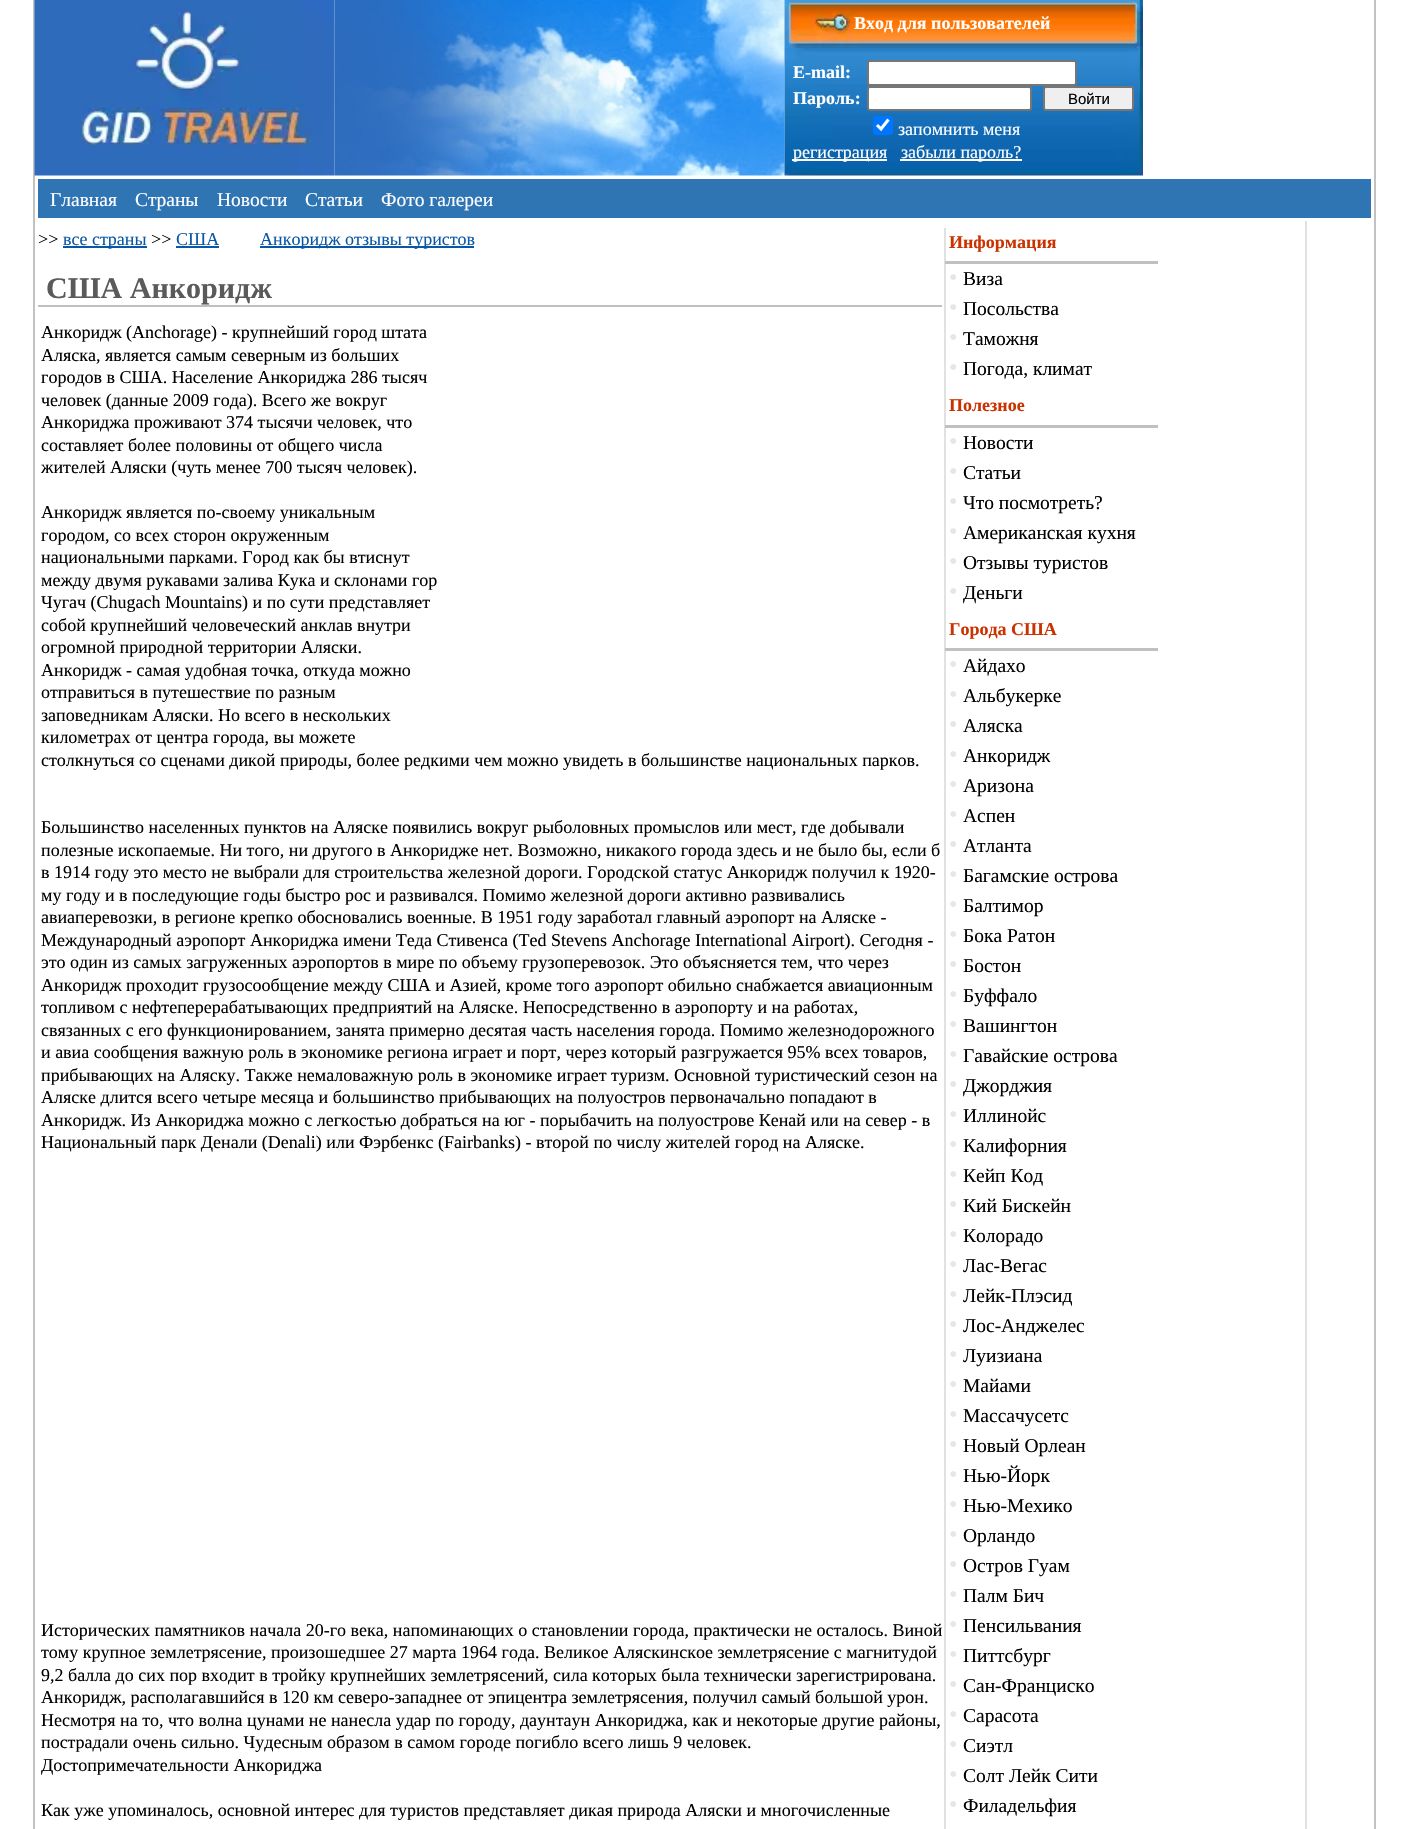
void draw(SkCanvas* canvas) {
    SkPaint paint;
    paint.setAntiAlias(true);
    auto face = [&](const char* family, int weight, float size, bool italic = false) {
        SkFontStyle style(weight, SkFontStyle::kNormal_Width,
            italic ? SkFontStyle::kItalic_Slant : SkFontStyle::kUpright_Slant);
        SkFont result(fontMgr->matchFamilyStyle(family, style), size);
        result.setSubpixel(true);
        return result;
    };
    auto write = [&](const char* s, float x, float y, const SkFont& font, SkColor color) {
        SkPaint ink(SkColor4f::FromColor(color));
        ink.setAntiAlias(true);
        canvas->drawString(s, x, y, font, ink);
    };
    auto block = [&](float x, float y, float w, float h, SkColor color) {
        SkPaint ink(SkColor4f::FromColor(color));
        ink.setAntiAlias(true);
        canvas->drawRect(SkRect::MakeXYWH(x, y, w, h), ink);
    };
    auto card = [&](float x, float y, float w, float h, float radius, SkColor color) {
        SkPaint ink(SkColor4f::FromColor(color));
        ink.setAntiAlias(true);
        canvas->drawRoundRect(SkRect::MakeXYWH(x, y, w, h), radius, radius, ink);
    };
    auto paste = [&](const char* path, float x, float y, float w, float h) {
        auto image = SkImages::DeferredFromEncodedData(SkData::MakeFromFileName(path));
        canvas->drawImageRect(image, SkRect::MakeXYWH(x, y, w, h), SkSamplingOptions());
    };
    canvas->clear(SK_ColorWHITE);
    block(1374, 0, 2, 1829, SkColorSetRGB(194, 194, 194));
    block(33, 0, 2, 1829, SkColorSetRGB(194, 194, 194));
    paste("pic1.png", 34, 0, 301, 176);
    paste("pic2.png", 334, 0, 451, 176);
    paste("pic3.png", 784, 0, 359, 48);
    auto kFont1 = face("Liberation Serif", 700, 18);
    write("Вход для пользователей", 854, 29, kFont1, SK_ColorWHITE);
    paste("pic4.png", 784, 48, 359, 128);
    write("E-mail:", 793, 78, kFont1, SK_ColorWHITE);
    paint.setColor(SK_ColorWHITE);
    canvas->drawRoundRect(SkRect::MakeXYWH(868, 61, 208, 24), 2, 2, paint);
    paint.setStyle(SkPaint::kStroke_Style);
    paint.setStrokeWidth(2);
    paint.setColor(SkColorSetRGB(118, 118, 118));
    canvas->drawRoundRect(SkRect::MakeXYWH(868, 61, 208, 24), 2, 2, paint);
    write("Пароль:", 793, 104, kFont1, SK_ColorWHITE);
    paint.setStyle(SkPaint::kFill_Style);
    paint.setColor(SK_ColorWHITE);
    canvas->drawRoundRect(SkRect::MakeXYWH(868, 87, 163, 23), 2, 2, paint);
    paint.setStyle(SkPaint::kStroke_Style);
    paint.setColor(SkColorSetRGB(118, 118, 118));
    canvas->drawRoundRect(SkRect::MakeXYWH(868, 87, 163, 23), 2, 2, paint);
    paint.setStyle(SkPaint::kFill_Style);
    paint.setColor(SkColorSetRGB(239, 239, 239));
    canvas->drawRoundRect(SkRect::MakeXYWH(1044, 87, 89, 23), 2, 2, paint);
    paint.setStyle(SkPaint::kStroke_Style);
    paint.setColor(SkColorSetRGB(118, 118, 118));
    canvas->drawRoundRect(SkRect::MakeXYWH(1044, 87, 89, 23), 2, 2, paint);
    auto kFont2 = face("Liberation Sans", 400, 15);
    write("Войти", 1068, 104, kFont2, SK_ColorBLACK);
    card(873, 116, 20, 19, 3, SkColorSetRGB(0, 117, 255));
    paint.setStrokeWidth(3.1f);
    paint.setColor(SK_ColorWHITE);
    canvas->drawPath(SkPathBuilder().moveTo(877, 125).lineTo(881, 129).lineTo(888.5f, 119.5f).detach(), paint);
    auto kFont3 = face("Liberation Serif", 400, 18);
    write("запомнить меня", 898, 135, kFont3, SK_ColorWHITE);
    block(792, 159, 95, 2, SK_ColorWHITE);
    write("регистрация", 793, 158, kFont3, SK_ColorWHITE);
    block(900, 159, 122, 2, SK_ColorWHITE);
    write("забыли пароль?", 901, 158, kFont3, SK_ColorWHITE);
    block(38, 179, 1333, 39, SkColorSetRGB(47, 117, 180));
    auto kFont4 = face("Liberation Serif", 400, 19.5f);
    write("Главная", 50, 206, kFont4, SK_ColorWHITE);
    write("Страны", 135, 206, kFont4, SK_ColorWHITE);
    write("Новости", 217, 206, kFont4, SK_ColorWHITE);
    write("Статьи", 305, 206, kFont4, SK_ColorWHITE);
    write("Фото галереи", 381, 206, kFont4, SK_ColorWHITE);
    block(944, 228, 2, 1601, SkColorSetRGB(225, 225, 225));
    write(">>", 38, 245, kFont3, SK_ColorBLACK);
    block(63, 246, 84, 2, SkColorSetRGB(8, 87, 166));
    write("все страны", 63, 245, kFont3, SkColorSetRGB(8, 87, 166));
    write(">>", 151, 245, kFont3, SK_ColorBLACK);
    write("США", 176, 245, kFont3, SkColorSetRGB(8, 87, 166));
    block(176, 246, 43, 2, SkColorSetRGB(8, 87, 166));
    block(260, 246, 214, 2, SkColorSetRGB(8, 87, 166));
    write("Анкоридж отзывы туристов", 260, 245, kFont3, SkColorSetRGB(8, 87, 166));
    block(38, 305, 904, 2, SkColorSetRGB(192, 192, 192));
    auto kFont5 = face("Liberation Serif", 700, 30);
    write("США Анкоридж", 46, 298, kFont5, SkColorSetRGB(90, 90, 90));
    write("Анкоридж (Anchorage) - крупнейший город штата", 41, 338, kFont3, SK_ColorBLACK);
    write("Аляска, является самым северным из больших", 41, 361, kFont3, SK_ColorBLACK);
    write("городов в США. Население Анкориджа 286 тысяч", 41, 383, kFont3, SK_ColorBLACK);
    write("человек (данные 2009 года). Всего же вокруг", 41, 406, kFont3, SK_ColorBLACK);
    write("Анкориджа проживают 374 тысячи человек, что", 41, 428, kFont3, SK_ColorBLACK);
    write("составляет более половины от общего числа", 41, 451, kFont3, SK_ColorBLACK);
    write("жителей Аляски (чуть менее 700 тысяч человек).", 41, 473, kFont3, SK_ColorBLACK);
    write("Анкоридж является по-своему уникальным", 41, 518, kFont3, SK_ColorBLACK);
    write("городом, со всех сторон окруженным", 41, 541, kFont3, SK_ColorBLACK);
    write("национальными парками. Город как бы втиснут", 41, 563, kFont3, SK_ColorBLACK);
    write("между двумя рукавами залива Кука и склонами гор", 41, 586, kFont3, SK_ColorBLACK);
    write("Чугач (Chugach Mountains) и по сути представляет", 41, 608, kFont3, SK_ColorBLACK);
    write("собой крупнейший человеческий анклав внутри", 41, 631, kFont3, SK_ColorBLACK);
    write("огромной природной территории Аляски.", 41, 653, kFont3, SK_ColorBLACK);
    write("Анкоридж - самая удобная точка, откуда можно", 41, 676, kFont3, SK_ColorBLACK);
    write("отправиться в путешествие по разным", 41, 698, kFont3, SK_ColorBLACK);
    write("заповедникам Аляски. Но всего в нескольких", 41, 721, kFont3, SK_ColorBLACK);
    write("километрах от центра города, вы можете", 41, 743, kFont3, SK_ColorBLACK);
    write("столкнуться со сценами дикой природы, более редкими чем можно увидеть в большинстве национальных парков.", 41, 766, kFont3, SK_ColorBLACK);
    write("Большинство населенных пунктов на Аляске появились вокруг рыболовных промыслов или мест, где добывали", 41, 833, kFont3, SK_ColorBLACK);
    write("полезные ископаемые. Ни того, ни другого в Анкоридже нет. Возможно, никакого города здесь и не было бы, если б", 41, 856, kFont3, SK_ColorBLACK);
    write("в 1914 году это место не выбрали для строительства железной дороги. Городской статус Анкоридж получил к 1920-", 41, 878, kFont3, SK_ColorBLACK);
    write("му году и в последующие годы быстро рос и развивался. Помимо железной дороги активно развивались", 41, 901, kFont3, SK_ColorBLACK);
    write("авиаперевозки, в регионе крепко обосновались военные. В 1951 году заработал главный аэропорт на Аляске -", 41, 923, kFont3, SK_ColorBLACK);
    write("Международный аэропорт Анкориджа имени Теда Стивенса (Ted Stevens Anchorage International Airport). Сегодня -", 41, 946, kFont3, SK_ColorBLACK);
    write("это один из самых загруженных аэропортов в мире по объему грузоперевозок. Это объясняется тем, что через", 41, 968, kFont3, SK_ColorBLACK);
    write("Анкоридж проходит грузосообщение между США и Азией, кроме того аэропорт обильно снабжается авиационным", 41, 991, kFont3, SK_ColorBLACK);
    write("топливом с нефтеперерабатывающих предприятий на Аляске. Непосредственно в аэропорту и на работах,", 41, 1013, kFont3, SK_ColorBLACK);
    write("связанных с его функционированием, занята примерно десятая часть населения города. Помимо железнодорожного", 41, 1036, kFont3, SK_ColorBLACK);
    write("и авиа сообщения важную роль в экономике региона играет и порт, через который разгружается 95% всех товаров,", 41, 1058, kFont3, SK_ColorBLACK);
    write("прибывающих на Аляску. Также немаловажную роль в экономике играет туризм. Основной туристический сезон на", 41, 1081, kFont3, SK_ColorBLACK);
    write("Аляске длится всего четыре месяца и большинство прибывающих на полуостров первоначально попадают в", 41, 1103, kFont3, SK_ColorBLACK);
    write("Анкоридж. Из Анкориджа можно с легкостью добраться на юг - порыбачить на полуострове Кенай или на север - в", 41, 1126, kFont3, SK_ColorBLACK);
    write("Национальный парк Денали (Denali) или Фэрбенкс (Fairbanks) - второй по числу жителей город на Аляске.", 41, 1148, kFont3, SK_ColorBLACK);
    write("Исторических памятников начала 20-го века, напоминающих о становлении города, практически не осталось. Виной", 41, 1636, kFont3, SK_ColorBLACK);
    write("тому крупное землетрясение, произошедшее 27 марта 1964 года. Великое Аляскинское землетрясение с магнитудой", 41, 1658, kFont3, SK_ColorBLACK);
    write("9,2 балла до сих пор входит в тройку крупнейших землетрясений, сила которых была технически зарегистрирована.", 41, 1681, kFont3, SK_ColorBLACK);
    write("Анкоридж, располагавшийся в 120 км северо-западнее от эпицентра землетрясения, получил самый большой урон.", 41, 1703, kFont3, SK_ColorBLACK);
    write("Несмотря на то, что волна цунами не нанесла удар по городу, даунтаун Анкориджа, как и некоторые другие районы,", 41, 1726, kFont3, SK_ColorBLACK);
    write("пострадали очень сильно. Чудесным образом в самом городе погибло всего лишь 9 человек.", 41, 1748, kFont3, SK_ColorBLACK);
    write("Достопримечательности Анкориджа", 41, 1771, kFont3, SK_ColorBLACK);
    write("Как уже упоминалось, основной интерес для туристов представляет дикая природа Аляски и многочисленные", 41, 1816, kFont3, SK_ColorBLACK);
    block(1305, 221, 2, 1608, SkColorSetRGB(225, 225, 225));
    block(945, 261, 213, 3, SkColorSetRGB(192, 192, 192));
    write("Информация", 949, 248, kFont1, SkColorSetRGB(202, 50, 0));
    auto kFont6 = face("Liberation Serif", 400, 24);
    write("•", 949, 285, kFont6, SkColorSetRGB(230, 230, 230));
    write("Виза", 963, 285, kFont4, SK_ColorBLACK);
    write("•", 949, 315, kFont6, SkColorSetRGB(230, 230, 230));
    write("Посольства", 963, 315, kFont4, SK_ColorBLACK);
    write("•", 949, 345, kFont6, SkColorSetRGB(230, 230, 230));
    write("Таможня", 963, 345, kFont4, SK_ColorBLACK);
    write("•", 949, 375, kFont6, SkColorSetRGB(230, 230, 230));
    write("Погода, климат", 963, 375, kFont4, SK_ColorBLACK);
    block(945, 425, 213, 3, SkColorSetRGB(192, 192, 192));
    write("Полезное", 949, 411, kFont1, SkColorSetRGB(202, 50, 0));
    write("•", 949, 449, kFont6, SkColorSetRGB(230, 230, 230));
    write("Новости", 963, 449, kFont4, SK_ColorBLACK);
    write("•", 949, 479, kFont6, SkColorSetRGB(230, 230, 230));
    write("Статьи", 963, 479, kFont4, SK_ColorBLACK);
    write("•", 949, 509, kFont6, SkColorSetRGB(230, 230, 230));
    write("Что посмотреть?", 963, 509, kFont4, SK_ColorBLACK);
    write("•", 949, 539, kFont6, SkColorSetRGB(230, 230, 230));
    write("Американская кухня", 963, 539, kFont4, SK_ColorBLACK);
    write("•", 949, 569, kFont6, SkColorSetRGB(230, 230, 230));
    write("Отзывы туристов", 963, 569, kFont4, SK_ColorBLACK);
    write("•", 949, 599, kFont6, SkColorSetRGB(230, 230, 230));
    write("Деньги", 963, 599, kFont4, SK_ColorBLACK);
    block(945, 648, 213, 3, SkColorSetRGB(192, 192, 192));
    write("Города США", 949, 635, kFont1, SkColorSetRGB(202, 50, 0));
    write("•", 949, 672, kFont6, SkColorSetRGB(230, 230, 230));
    write("Айдахо", 963, 672, kFont4, SK_ColorBLACK);
    write("•", 949, 702, kFont6, SkColorSetRGB(230, 230, 230));
    write("Альбукерке", 963, 702, kFont4, SK_ColorBLACK);
    write("•", 949, 732, kFont6, SkColorSetRGB(230, 230, 230));
    write("Аляска", 963, 732, kFont4, SK_ColorBLACK);
    write("•", 949, 762, kFont6, SkColorSetRGB(230, 230, 230));
    write("Анкоридж", 963, 762, kFont4, SK_ColorBLACK);
    write("•", 949, 792, kFont6, SkColorSetRGB(230, 230, 230));
    write("Аризона", 963, 792, kFont4, SK_ColorBLACK);
    write("•", 949, 822, kFont6, SkColorSetRGB(230, 230, 230));
    write("Аспен", 963, 822, kFont4, SK_ColorBLACK);
    write("•", 949, 852, kFont6, SkColorSetRGB(230, 230, 230));
    write("Атланта", 963, 852, kFont4, SK_ColorBLACK);
    write("•", 949, 882, kFont6, SkColorSetRGB(230, 230, 230));
    write("Багамские острова", 963, 882, kFont4, SK_ColorBLACK);
    write("•", 949, 912, kFont6, SkColorSetRGB(230, 230, 230));
    write("Балтимор", 963, 912, kFont4, SK_ColorBLACK);
    write("•", 949, 942, kFont6, SkColorSetRGB(230, 230, 230));
    write("Бока Ратон", 963, 942, kFont4, SK_ColorBLACK);
    write("•", 949, 972, kFont6, SkColorSetRGB(230, 230, 230));
    write("Бостон", 963, 972, kFont4, SK_ColorBLACK);
    write("•", 949, 1002, kFont6, SkColorSetRGB(230, 230, 230));
    write("Буффало", 963, 1002, kFont4, SK_ColorBLACK);
    write("•", 949, 1032, kFont6, SkColorSetRGB(230, 230, 230));
    write("Вашингтон", 963, 1032, kFont4, SK_ColorBLACK);
    write("•", 949, 1062, kFont6, SkColorSetRGB(230, 230, 230));
    write("Гавайские острова", 963, 1062, kFont4, SK_ColorBLACK);
    write("•", 949, 1092, kFont6, SkColorSetRGB(230, 230, 230));
    write("Джорджия", 963, 1092, kFont4, SK_ColorBLACK);
    write("•", 949, 1122, kFont6, SkColorSetRGB(230, 230, 230));
    write("Иллинойс", 963, 1122, kFont4, SK_ColorBLACK);
    write("•", 949, 1152, kFont6, SkColorSetRGB(230, 230, 230));
    write("Калифорния", 963, 1152, kFont4, SK_ColorBLACK);
    write("•", 949, 1182, kFont6, SkColorSetRGB(230, 230, 230));
    write("Кейп Код", 963, 1182, kFont4, SK_ColorBLACK);
    write("•", 949, 1212, kFont6, SkColorSetRGB(230, 230, 230));
    write("Кий Бискейн", 963, 1212, kFont4, SK_ColorBLACK);
    write("•", 949, 1242, kFont6, SkColorSetRGB(230, 230, 230));
    write("Колорадо", 963, 1242, kFont4, SK_ColorBLACK);
    write("•", 949, 1272, kFont6, SkColorSetRGB(230, 230, 230));
    write("Лас-Вегас", 963, 1272, kFont4, SK_ColorBLACK);
    write("•", 949, 1302, kFont6, SkColorSetRGB(230, 230, 230));
    write("Лейк-Плэсид", 963, 1302, kFont4, SK_ColorBLACK);
    write("•", 949, 1332, kFont6, SkColorSetRGB(230, 230, 230));
    write("Лос-Анджелес", 963, 1332, kFont4, SK_ColorBLACK);
    write("•", 949, 1362, kFont6, SkColorSetRGB(230, 230, 230));
    write("Луизиана", 963, 1362, kFont4, SK_ColorBLACK);
    write("•", 949, 1392, kFont6, SkColorSetRGB(230, 230, 230));
    write("Майами", 963, 1392, kFont4, SK_ColorBLACK);
    write("•", 949, 1422, kFont6, SkColorSetRGB(230, 230, 230));
    write("Массачусетс", 963, 1422, kFont4, SK_ColorBLACK);
    write("•", 949, 1452, kFont6, SkColorSetRGB(230, 230, 230));
    write("Новый Орлеан", 963, 1452, kFont4, SK_ColorBLACK);
    write("•", 949, 1482, kFont6, SkColorSetRGB(230, 230, 230));
    write("Нью-Йорк", 963, 1482, kFont4, SK_ColorBLACK);
    write("•", 949, 1512, kFont6, SkColorSetRGB(230, 230, 230));
    write("Нью-Мехико", 963, 1512, kFont4, SK_ColorBLACK);
    write("•", 949, 1542, kFont6, SkColorSetRGB(230, 230, 230));
    write("Орландо", 963, 1542, kFont4, SK_ColorBLACK);
    write("•", 949, 1572, kFont6, SkColorSetRGB(230, 230, 230));
    write("Остров Гуам", 963, 1572, kFont4, SK_ColorBLACK);
    write("•", 949, 1602, kFont6, SkColorSetRGB(230, 230, 230));
    write("Палм Бич", 963, 1602, kFont4, SK_ColorBLACK);
    write("•", 949, 1632, kFont6, SkColorSetRGB(230, 230, 230));
    write("Пенсильвания", 963, 1632, kFont4, SK_ColorBLACK);
    write("•", 949, 1662, kFont6, SkColorSetRGB(230, 230, 230));
    write("Питтсбург", 963, 1662, kFont4, SK_ColorBLACK);
    write("•", 949, 1692, kFont6, SkColorSetRGB(230, 230, 230));
    write("Сан-Франциско", 963, 1692, kFont4, SK_ColorBLACK);
    write("•", 949, 1722, kFont6, SkColorSetRGB(230, 230, 230));
    write("Сарасота", 963, 1722, kFont4, SK_ColorBLACK);
    write("•", 949, 1752, kFont6, SkColorSetRGB(230, 230, 230));
    write("Сиэтл", 963, 1752, kFont4, SK_ColorBLACK);
    write("•", 949, 1782, kFont6, SkColorSetRGB(230, 230, 230));
    write("Солт Лейк Сити", 963, 1782, kFont4, SK_ColorBLACK);
    write("•", 949, 1812, kFont6, SkColorSetRGB(230, 230, 230));
    write("Филадельфия", 963, 1812, kFont4, SK_ColorBLACK);
}
